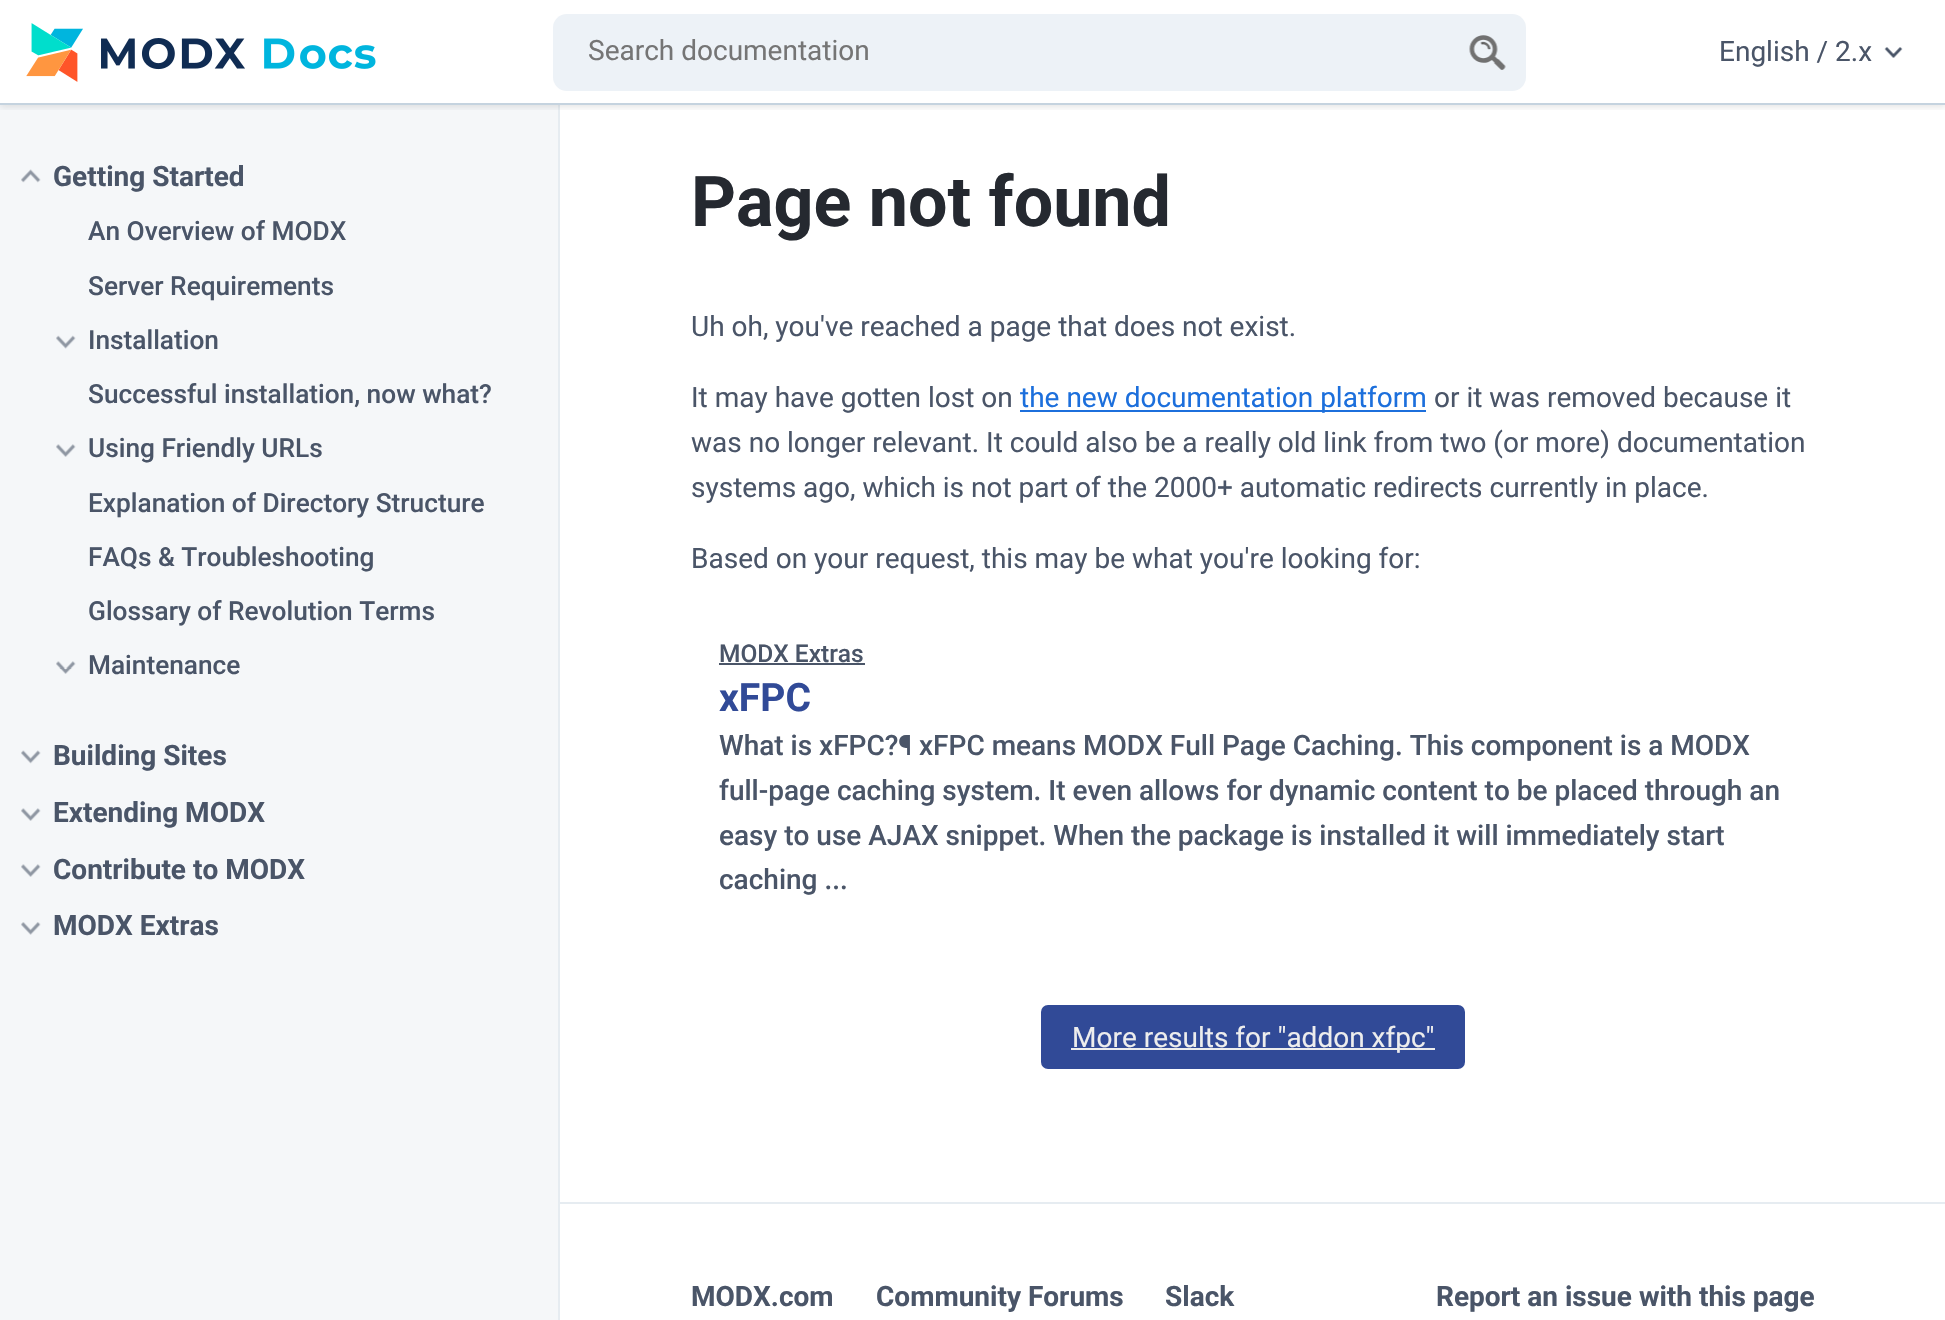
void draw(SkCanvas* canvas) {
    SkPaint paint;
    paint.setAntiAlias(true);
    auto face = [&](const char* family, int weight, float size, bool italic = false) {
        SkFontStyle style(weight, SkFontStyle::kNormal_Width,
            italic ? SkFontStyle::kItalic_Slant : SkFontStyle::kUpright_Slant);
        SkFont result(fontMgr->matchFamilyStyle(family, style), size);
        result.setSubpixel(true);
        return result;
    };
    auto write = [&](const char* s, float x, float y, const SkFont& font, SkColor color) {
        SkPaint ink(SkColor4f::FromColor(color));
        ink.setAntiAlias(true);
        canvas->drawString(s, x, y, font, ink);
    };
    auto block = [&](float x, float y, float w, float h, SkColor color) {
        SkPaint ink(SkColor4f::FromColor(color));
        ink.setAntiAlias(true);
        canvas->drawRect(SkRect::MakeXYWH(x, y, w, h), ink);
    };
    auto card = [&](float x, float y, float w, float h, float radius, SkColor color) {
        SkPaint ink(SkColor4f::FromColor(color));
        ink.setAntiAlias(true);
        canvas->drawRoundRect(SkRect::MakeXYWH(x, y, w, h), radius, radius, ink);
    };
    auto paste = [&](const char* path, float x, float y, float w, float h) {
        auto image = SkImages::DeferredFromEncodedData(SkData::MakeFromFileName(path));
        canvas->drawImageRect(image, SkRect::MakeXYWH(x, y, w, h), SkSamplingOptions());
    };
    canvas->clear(SK_ColorWHITE);
    block(0, 105, 558, 1215, SkColorSetRGB(245, 247, 249));
    block(558, 105, 2, 1215, SkColorSetRGB(230, 236, 241));
    canvas->save();
    canvas->clipRect(SkRect::MakeXYWH(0, 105, 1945, 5));
    paint.setColor(SkColorSetARGB(26, 0, 0, 0));
    paint.setMaskFilter(SkMaskFilter::MakeBlur(kNormal_SkBlurStyle, 3.5f));
    canvas->drawRect(SkRect::MakeXYWH(0, 2, 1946, 105), paint);
    paint.setMaskFilter(nullptr);
    canvas->restore();
    block(0, 103, 1945, 2, SkColorSetRGB(197, 211, 223));
    paste("pic1.png", 26, 23, 350, 59);
    card(553, 14, 973, 77, 14, SkColorSetRGB(237, 242, 247));
    auto kFont1 = face("Roboto", 400, 28);
    write("Search documentation", 588, 60, kFont1, SkColorSetRGB(117, 117, 117));
    paste("pic2.png", 1469, 35, 37, 35);
    write("English / 2.x", 1719, 61, kFont1, SkColorSetRGB(74, 85, 104));
    paste("pic3.png", 1884, 47, 19, 11);
    paste("pic4.png", 21, 169, 20, 14);
    auto kFont2 = face("Roboto", 700, 28);
    write("Getting Started", 53, 186, kFont2, SkColorSetRGB(74, 85, 104));
    auto kFont3 = face("Roboto", 500, 26.25f);
    write("An Overview of MODX", 88, 240, kFont3, SkColorSetRGB(74, 85, 104));
    write("Server Requirements", 88, 295, kFont3, SkColorSetRGB(74, 85, 104));
    paste("pic5.png", 56, 335, 20, 14);
    write("Installation", 88, 349, kFont3, SkColorSetRGB(74, 85, 104));
    write("Successful installation, now what?", 88, 403, kFont3, SkColorSetRGB(74, 85, 104));
    paste("pic6.png", 56, 444, 20, 13);
    write("Using Friendly URLs", 88, 457, kFont3, SkColorSetRGB(74, 85, 104));
    write("Explanation of Directory Structure", 88, 512, kFont3, SkColorSetRGB(74, 85, 104));
    write("FAQs & Troubleshooting", 88, 566, kFont3, SkColorSetRGB(74, 85, 104));
    write("Glossary of Revolution Terms", 88, 620, kFont3, SkColorSetRGB(74, 85, 104));
    paste("pic7.png", 56, 661, 20, 13);
    write("Maintenance", 88, 674, kFont3, SkColorSetRGB(74, 85, 104));
    paste("pic8.png", 21, 750, 20, 14);
    write("Building Sites", 53, 765, kFont2, SkColorSetRGB(74, 85, 104));
    paste("pic6.png", 21, 808, 20, 13);
    write("Extending MODX", 53, 822, kFont2, SkColorSetRGB(74, 85, 104));
    paste("pic6.png", 21, 864, 20, 13);
    write("Contribute to MODX", 53, 879, kFont2, SkColorSetRGB(74, 85, 104));
    paste("pic9.png", 21, 922, 20, 13);
    write("MODX Extras", 53, 935, kFont2, SkColorSetRGB(74, 85, 104));
    auto kFont4 = face("Roboto", 700, 70);
    write("Page not found", 691, 226, kFont4, SkColorSetRGB(37, 41, 48));
    write("Uh oh, you've reached a page that does not exist.", 691, 336, kFont1, SkColorSetRGB(74, 85, 104));
    write("It may have gotten lost on", 691, 407, kFont1, SkColorSetRGB(74, 85, 104));
    block(1020, 410, 406, 2, SkColorSetRGB(28, 111, 220));
    write("the new documentation platform", 1020, 407, kFont1, SkColorSetRGB(28, 111, 220));
    write("or it was removed because it", 1434, 407, kFont1, SkColorSetRGB(74, 85, 104));
    write("was no longer relevant. It could also be a really old link from two (or more) documentation", 691, 452, kFont1, SkColorSetRGB(74, 85, 104));
    write("systems ago, which is not part of the 2000+ automatic redirects currently in place.", 691, 497, kFont1, SkColorSetRGB(74, 85, 104));
    write("Based on your request, this may be what you're looking for:", 691, 568, kFont1, SkColorSetRGB(74, 85, 104));
    auto kFont5 = face("Roboto", 500, 24.5f);
    write("MODX Extras", 719, 662, kFont5, SkColorSetRGB(74, 85, 104));
    block(719, 663, 146, 2, SkColorSetRGB(74, 85, 104));
    auto kFont6 = face("Roboto", 700, 39);
    write("xFPC", 719, 711, kFont6, SkColorSetRGB(49, 74, 151));
    auto kFont7 = face("Roboto", 500, 28);
    write("What is xFPC?¶ xFPC means MODX Full Page Caching. This component is a MODX", 719, 755, kFont7, SkColorSetRGB(74, 85, 104));
    write("full-page caching system. It even allows for dynamic content to be placed through an", 719, 800, kFont7, SkColorSetRGB(74, 85, 104));
    write("easy to use AJAX snippet. When the package is installed it will immediately start", 719, 845, kFont7, SkColorSetRGB(74, 85, 104));
    write("caching ...", 719, 889, kFont7, SkColorSetRGB(74, 85, 104));
    paint.setColor(SkColorSetRGB(49, 74, 151));
    canvas->drawRoundRect(SkRect::MakeXYWH(1042, 1006, 422, 62), 6, 6, paint);
    paint.setStyle(SkPaint::kStroke_Style);
    paint.setStrokeWidth(2);
    canvas->drawRoundRect(SkRect::MakeXYWH(1042, 1006, 422, 62), 6, 6, paint);
    block(1071, 1048, 364, 2, SkColorSetRGB(237, 237, 237));
    write("More results for \"addon xfpc\"", 1072, 1047, kFont1, SkColorSetRGB(237, 237, 237));
    block(560, 1202, 1385, 2, SkColorSetRGB(230, 236, 241));
    write("MODX.com", 691, 1306, kFont2, SkColorSetRGB(74, 85, 104));
    write("Community Forums", 876, 1306, kFont2, SkColorSetRGB(74, 85, 104));
    write("Slack", 1165, 1306, kFont2, SkColorSetRGB(74, 85, 104));
    write("Report an issue with this page", 1436, 1306, kFont2, SkColorSetRGB(74, 85, 104));
}
